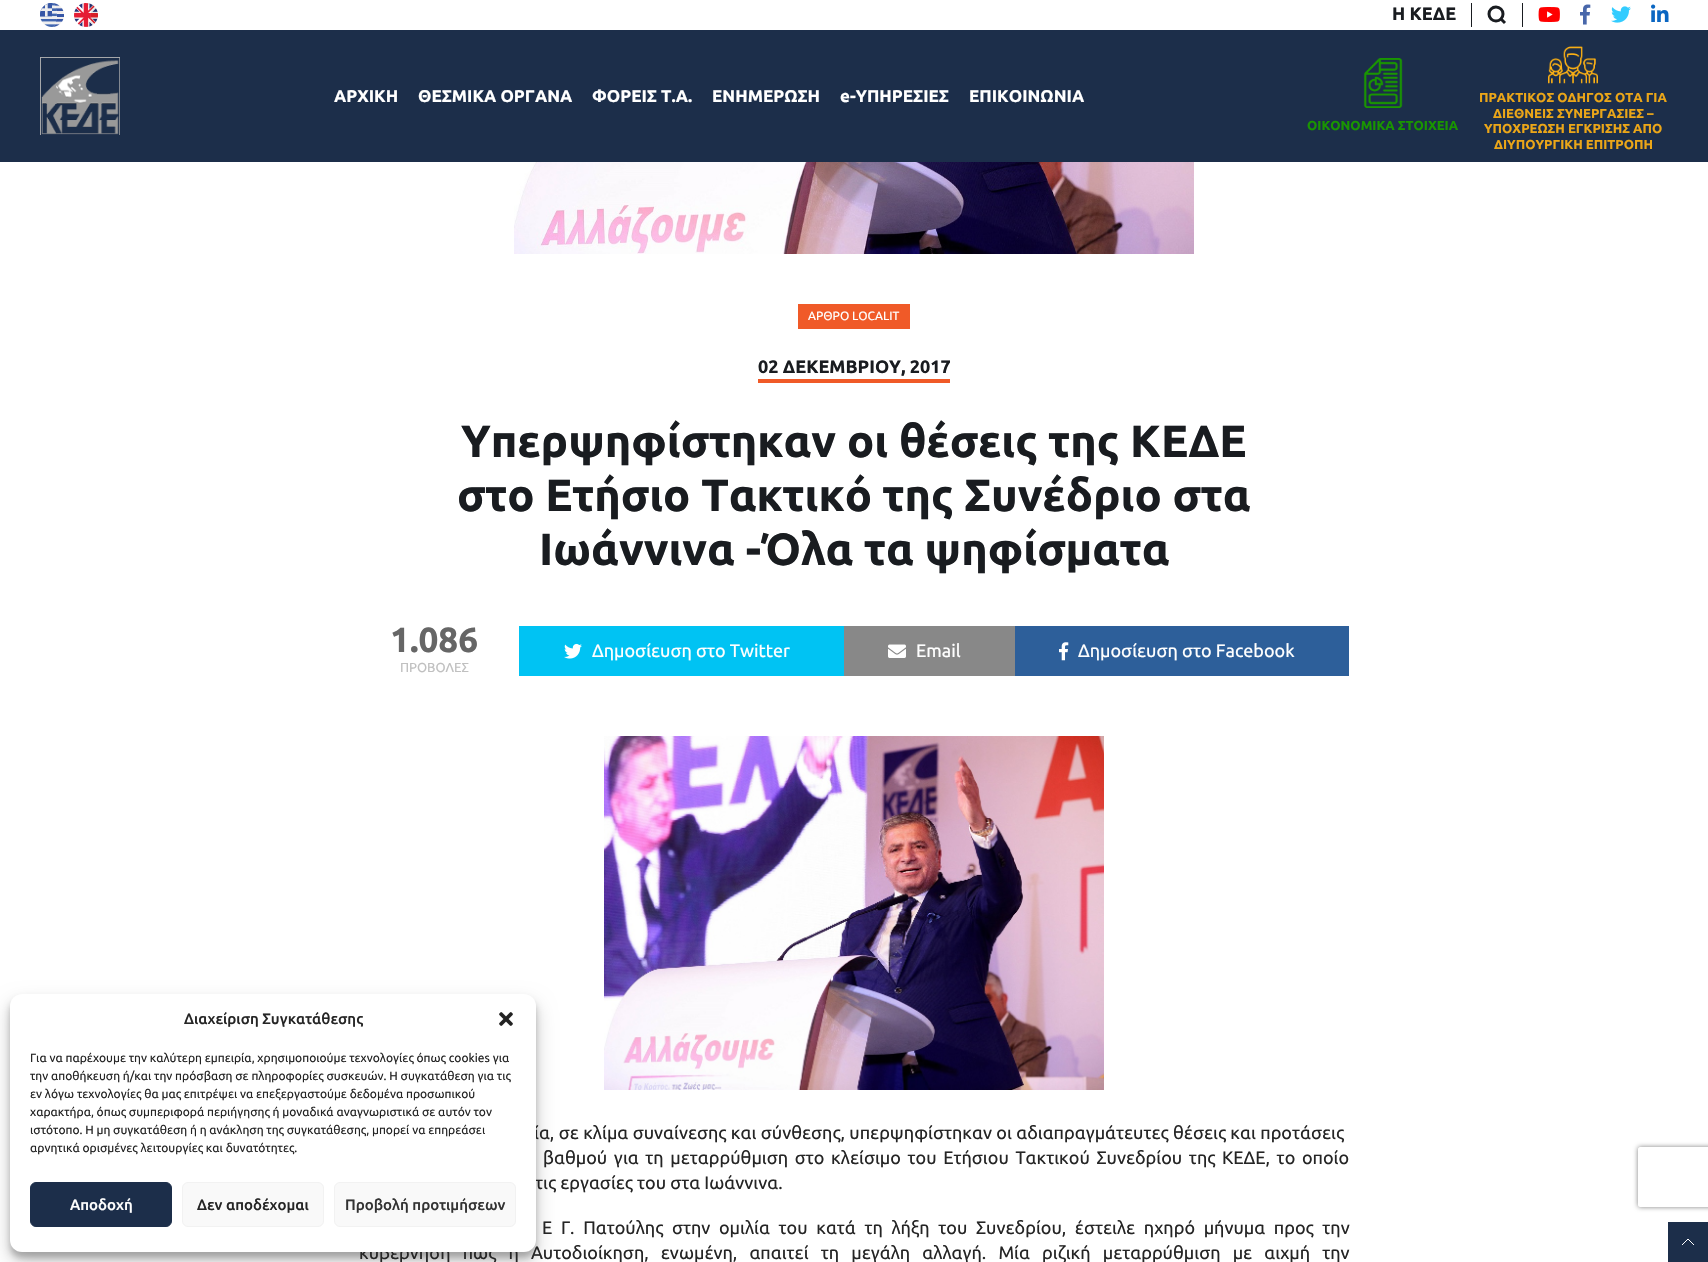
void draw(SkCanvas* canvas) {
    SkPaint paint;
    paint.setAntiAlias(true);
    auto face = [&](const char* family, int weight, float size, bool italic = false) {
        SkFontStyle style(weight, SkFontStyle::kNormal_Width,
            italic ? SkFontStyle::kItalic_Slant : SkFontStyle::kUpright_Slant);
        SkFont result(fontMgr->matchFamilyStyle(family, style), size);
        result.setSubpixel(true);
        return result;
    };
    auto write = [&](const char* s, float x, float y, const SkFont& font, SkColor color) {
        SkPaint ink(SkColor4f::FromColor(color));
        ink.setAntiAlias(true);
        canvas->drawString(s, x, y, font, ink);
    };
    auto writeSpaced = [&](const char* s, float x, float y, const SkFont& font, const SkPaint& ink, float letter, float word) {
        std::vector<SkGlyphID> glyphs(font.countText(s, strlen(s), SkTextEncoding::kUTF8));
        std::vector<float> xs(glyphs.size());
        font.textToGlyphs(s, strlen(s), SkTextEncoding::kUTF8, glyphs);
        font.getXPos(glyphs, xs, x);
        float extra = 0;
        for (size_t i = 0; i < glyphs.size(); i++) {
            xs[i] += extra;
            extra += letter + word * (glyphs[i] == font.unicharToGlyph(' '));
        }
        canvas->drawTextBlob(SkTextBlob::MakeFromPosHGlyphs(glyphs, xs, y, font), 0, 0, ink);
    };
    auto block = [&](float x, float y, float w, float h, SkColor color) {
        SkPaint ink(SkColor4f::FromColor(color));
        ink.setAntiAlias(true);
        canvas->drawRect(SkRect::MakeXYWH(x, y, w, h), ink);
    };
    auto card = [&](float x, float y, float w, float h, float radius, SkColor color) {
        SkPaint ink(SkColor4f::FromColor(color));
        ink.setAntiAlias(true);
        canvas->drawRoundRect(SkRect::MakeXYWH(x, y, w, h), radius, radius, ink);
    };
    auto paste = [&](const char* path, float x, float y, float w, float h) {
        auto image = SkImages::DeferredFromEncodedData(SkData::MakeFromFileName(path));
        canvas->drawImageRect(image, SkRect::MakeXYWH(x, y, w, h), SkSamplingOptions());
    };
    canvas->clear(SK_ColorWHITE);
    paint.setColor(SkColorSetARGB(59, 0, 0, 0));
    paint.setMaskFilter(SkMaskFilter::MakeBlur(kNormal_SkBlurStyle, 3));
    canvas->drawRoundRect(SkRect::MakeXYWH(10, 1000, 526, 258), 12, 12, paint);
    paint.setMaskFilter(nullptr);
    paint.setColor(SkColorSetARGB(48, 0, 0, 0));
    paint.setMaskFilter(SkMaskFilter::MakeBlur(kNormal_SkBlurStyle, 10));
    canvas->drawRoundRect(SkRect::MakeXYWH(10, 1004, 526, 258), 12, 12, paint);
    paint.setMaskFilter(nullptr);
    auto kFont1 = face("Ubuntu", 400, 18);
    paint.setColor(SkColorSetRGB(37, 37, 37));
    writeSpaced("ία, σε κλίμα συναίνεσης και σύνθεσης, υπερψηφίστηκαν οι αδιαπραγμάτευτες θέσεις και προτάσεις", 534, 1139, kFont1, paint, 0, 0.25f);
    write("τις εργασίες του στα Ιωάννινα.", 535, 1189, kFont1, SkColorSetRGB(37, 37, 37));
    writeSpaced("κυβέρνηση πως η Αυτοδιοίκηση, ενωμένη, απαιτεί τη μεγάλη αλλαγή. Μία ριζική μεταρρύθμιση με αιχμή την", 359, 1259, kFont1, paint, 0, 8);
    card(10, 994, 526, 258, 12, SK_ColorWHITE);
    auto kFont2 = face("Ubuntu", 500, 15);
    write("Διαχείριση Συγκατάθεσης", 184, 1024, kFont2, SkColorSetRGB(37, 37, 37));
    paste("pic1.png", 499, 1012, 14, 14);
    auto kFont3 = face("Ubuntu", 400, 12);
    write("Για να παρέχουμε την καλύτερη εμπειρία, χρησιμοποιούμε τεχνολογίες όπως cookies για", 30, 1062, kFont3, SkColorSetRGB(37, 37, 37));
    write("την αποθήκευση ή/και την πρόσβαση σε πληροφορίες συσκευών. Η συγκατάθεση για τις", 30, 1080, kFont3, SkColorSetRGB(37, 37, 37));
    write("εν λόγω τεχνολογίες θα μας επιτρέψει να επεξεργαστούμε δεδομένα προσωπικού", 30, 1098, kFont3, SkColorSetRGB(37, 37, 37));
    write("χαρακτήρα, όπως συμπεριφορά περιήγησης ή μοναδικά αναγνωριστικά σε αυτόν τον", 30, 1116, kFont3, SkColorSetRGB(37, 37, 37));
    write("ιστότοπο. Η μη συγκατάθεση ή η ανάκληση της συγκατάθεσης, μπορεί να επηρεάσει", 30, 1134, kFont3, SkColorSetRGB(37, 37, 37));
    write("αρνητικά ορισμένες λειτουργίες και δυνατότητες.", 30, 1152, kFont3, SkColorSetRGB(37, 37, 37));
    paint.setColor(SkColorSetRGB(28, 46, 74));
    canvas->drawRoundRect(SkRect::MakeXYWH(30.5f, 1182.5f, 141, 44), 5.5f, 5.5f, paint);
    paint.setStyle(SkPaint::kStroke_Style);
    paint.setStrokeWidth(1);
    canvas->drawRoundRect(SkRect::MakeXYWH(30.5f, 1182.5f, 141, 44), 5.5f, 5.5f, paint);
    write("Αποδοχή", 70, 1210, kFont2, SK_ColorWHITE);
    paint.setStyle(SkPaint::kFill_Style);
    paint.setColor(SkColorSetRGB(249, 249, 249));
    canvas->drawRoundRect(SkRect::MakeXYWH(182.5f, 1182.5f, 141, 44), 5.5f, 5.5f, paint);
    paint.setStyle(SkPaint::kStroke_Style);
    paint.setColor(SkColorSetRGB(242, 242, 242));
    canvas->drawRoundRect(SkRect::MakeXYWH(182.5f, 1182.5f, 141, 44), 5.5f, 5.5f, paint);
    write("Δεν αποδέχομαι", 197, 1210, kFont2, SkColorSetRGB(37, 37, 37));
    paint.setStyle(SkPaint::kFill_Style);
    paint.setColor(SkColorSetRGB(249, 249, 249));
    canvas->drawRoundRect(SkRect::MakeXYWH(334.5f, 1182.5f, 181, 44), 5.5f, 5.5f, paint);
    paint.setStyle(SkPaint::kStroke_Style);
    paint.setColor(SkColorSetRGB(242, 242, 242));
    canvas->drawRoundRect(SkRect::MakeXYWH(334.5f, 1182.5f, 181, 44), 5.5f, 5.5f, paint);
    write("Προβολή προτιμήσεων", 345, 1210, kFont2, SkColorSetRGB(51, 51, 51));
    paste("pic2.png", 40, 3, 24, 24);
    paste("pic3.png", 74, 3, 24, 24);
    auto kFont4 = face("Ubuntu", 700, 18);
    write("Η ΚΕΔΕ", 1392, 20, kFont4, SkColorSetRGB(25, 28, 32));
    block(1522, 3, 1, 24, SkColorSetRGB(25, 28, 32));
    block(1471, 3, 1, 24, SkColorSetRGB(25, 28, 32));
    paint.setStrokeWidth(3);
    paint.setColor(SkColorSetRGB(25, 28, 32));
    canvas->drawCircle(1496, 14, 7, paint);
    canvas->drawPath(SkPathBuilder().moveTo(1501, 19).lineTo(1505, 23).close().detach(), paint);
    paste("pic4.png", 1538, 7, 22, 15);
    paste("pic5.png", 1580, 4, 11, 21);
    paste("pic6.png", 1611, 6, 20, 17);
    paste("pic7.png", 1651, 4, 18, 18);
    block(0, 30, 1708, 132, SkColorSetRGB(28, 46, 74));
    paste("pic8.png", 40, 57, 80, 78);
    auto kFont5 = face("Ubuntu", 700, 17);
    write("ΑΡΧΙΚΗ", 334, 102, kFont5, SK_ColorWHITE);
    write("ΘΕΣΜΙΚΑ ΟΡΓΑΝΑ", 418, 102, kFont5, SK_ColorWHITE);
    write("ΦΟΡΕΙΣ Τ.Α.", 592, 102, kFont5, SK_ColorWHITE);
    write("ΕΝΗΜΕΡΩΣΗ", 712, 102, kFont5, SK_ColorWHITE);
    write("e-ΥΠΗΡΕΣΙΕΣ", 840, 102, kFont5, SK_ColorWHITE);
    write("ΕΠΙΚΟΙΝΩΝΙΑ", 969, 102, kFont5, SK_ColorWHITE);
    paste("pic9.png", 1363, 58, 40, 50);
    auto kFont6 = face("Ubuntu", 700, 13);
    write("ΟΙΚΟΝΟΜΙΚΑ ΣΤΟΙΧΕΙΑ", 1307, 130, kFont6, SkColorSetRGB(25, 150, 0));
    paste("pic10.png", 1548, 46, 50, 38);
    write("ΠΡΑΚΤΙΚΟΣ ΟΔΗΓΟΣ ΟΤΑ ΓΙΑ", 1479, 102, kFont6, SkColorSetRGB(235, 166, 24));
    write("ΔΙΕΘΝΕΙΣ ΣΥΝΕΡΓΑΣΙΕΣ –", 1493, 118, kFont6, SkColorSetRGB(235, 166, 24));
    write("ΥΠΟΧΡΕΩΣΗ ΕΓΚΡΙΣΗΣ ΑΠΟ", 1484, 133, kFont6, SkColorSetRGB(235, 166, 24));
    write("ΔΙΥΠΟΥΡΓΙΚΗ ΕΠΙΤΡΟΠΗ", 1494, 149, kFont6, SkColorSetRGB(235, 166, 24));
    paste("pic11.png", 514, 162, 680, 92);
    block(798, 304, 112, 25, SkColorSetRGB(240, 90, 40));
    write("ΑΡΘΡΟ LOCALIT", 808, 320, kFont3, SK_ColorWHITE);
    write("02 ΔΕΚΕΜΒΡΙΟΥ, 2017", 758, 373, kFont4, SkColorSetRGB(25, 28, 32));
    block(758, 379, 192, 4, SkColorSetRGB(240, 90, 40));
    auto kFont7 = face("Ubuntu", 700, 45);
    write("Υπερψηφίστηκαν οι θέσεις της ΚΕΔΕ", 461, 457, kFont7, SkColorSetRGB(25, 28, 32));
    write("στο Ετήσιο Τακτικό της Συνέδριο στα", 457, 511, kFont7, SkColorSetRGB(25, 28, 32));
    write("Ιωάννινα -Όλα τα ψηφίσματα", 539, 565, kFont7, SkColorSetRGB(25, 28, 32));
    auto kFont8 = face("Ubuntu", 700, 35);
    write("1.086", 390, 652, kFont8, SkColorSetRGB(102, 102, 102));
    auto kFont9 = face("Ubuntu", 400, 13);
    write("ΠΡΟΒΟΛΕΣ", 400, 672, kFont9, SkColorSetRGB(192, 192, 192));
    block(519, 626, 325, 50, SkColorSetRGB(0, 195, 243));
    paste("pic12.png", 564, 643, 18, 16);
    write("Δημοσίευση στο Twitter", 592, 657, kFont1, SK_ColorWHITE);
    block(844, 626, 171, 50, SkColorSetRGB(136, 136, 136));
    paste("pic13.png", 888, 644, 18, 14);
    write("Email", 916, 657, kFont1, SK_ColorWHITE);
    block(1015, 626, 334, 50, SkColorSetRGB(45, 95, 154));
    paste("pic14.png", 1059, 642, 10, 19);
    write("Δημοσίευση στο Facebook", 1078, 657, kFont1, SK_ColorWHITE);
    paste("pic15.png", 604, 736, 500, 354);
    paint.setStyle(SkPaint::kFill_Style);
    paint.setColor(SkColorSetRGB(37, 37, 37));
    writeSpaced("βαθμού για τη μεταρρύθμιση στο κλείσιμο του Ετήσιου Τακτικού Συνεδρίου της ΚΕΔΕ, το οποίο", 543, 1164, kFont1, paint, 0, 2.5f);
    writeSpaced("Ε Γ. Πατούλης στην ομιλία του κατά τη λήξη του Συνεδρίου, έστειλε ηχηρό μήνυμα προς την", 542, 1234, kFont1, paint, 0, 4.5f);
    canvas->save();
    canvas->clipPath(SkPathBuilder(SkPathFillType::kEvenOdd).moveTo(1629, 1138).lineTo(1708, 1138).lineTo(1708, 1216).lineTo(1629, 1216).close().moveTo(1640, 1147).lineTo(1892, 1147).cubicTo(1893, 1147, 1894, 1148, 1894, 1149).lineTo(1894, 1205).cubicTo(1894, 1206, 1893, 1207, 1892, 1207).lineTo(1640, 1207).cubicTo(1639, 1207, 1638, 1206, 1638, 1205).lineTo(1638, 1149).cubicTo(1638, 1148, 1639, 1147, 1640, 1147).close().detach(), true);
    paint.setColor(SkColorSetRGB(128, 128, 128));
    paint.setMaskFilter(SkMaskFilter::MakeBlur(kNormal_SkBlurStyle, 2.5f));
    canvas->drawRoundRect(SkRect::MakeXYWH(1638, 1147, 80, 60), 2, 2, paint);
    paint.setMaskFilter(nullptr);
    canvas->restore();
    block(1668, 1222, 40, 40, SkColorSetRGB(28, 46, 74));
    paint.setStyle(SkPaint::kStroke_Style);
    paint.setStrokeWidth(1);
    paint.setColor(SK_ColorWHITE);
    canvas->drawPath(SkPathBuilder().moveTo(1682, 1245).lineTo(1688, 1239).lineTo(1694, 1245).detach(), paint);
}
